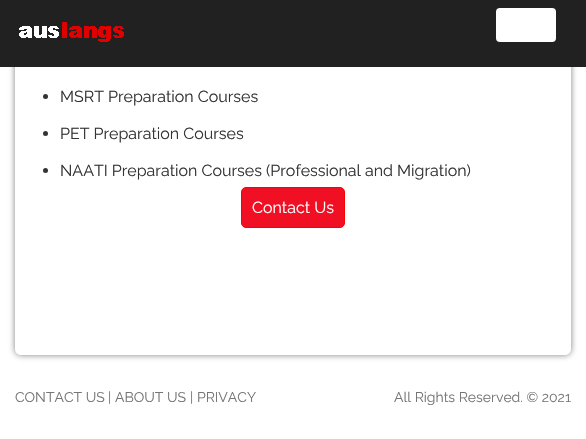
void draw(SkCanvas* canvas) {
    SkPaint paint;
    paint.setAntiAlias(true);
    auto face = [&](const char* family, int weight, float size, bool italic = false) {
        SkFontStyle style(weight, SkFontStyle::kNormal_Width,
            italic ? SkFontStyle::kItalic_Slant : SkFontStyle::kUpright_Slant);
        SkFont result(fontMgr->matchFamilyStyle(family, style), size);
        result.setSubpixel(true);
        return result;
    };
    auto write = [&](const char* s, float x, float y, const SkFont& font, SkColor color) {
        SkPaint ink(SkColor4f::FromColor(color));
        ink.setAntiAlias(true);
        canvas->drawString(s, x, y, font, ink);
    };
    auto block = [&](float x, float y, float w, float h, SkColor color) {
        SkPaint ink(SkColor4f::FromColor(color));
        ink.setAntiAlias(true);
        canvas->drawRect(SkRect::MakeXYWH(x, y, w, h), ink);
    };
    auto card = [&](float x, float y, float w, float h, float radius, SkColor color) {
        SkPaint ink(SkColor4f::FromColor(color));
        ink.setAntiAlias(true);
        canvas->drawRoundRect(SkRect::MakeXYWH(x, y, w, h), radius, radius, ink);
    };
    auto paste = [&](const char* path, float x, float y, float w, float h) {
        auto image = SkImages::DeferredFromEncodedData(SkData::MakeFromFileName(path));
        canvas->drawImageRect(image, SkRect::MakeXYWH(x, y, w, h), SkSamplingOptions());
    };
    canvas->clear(SK_ColorWHITE);
    canvas->save();
    canvas->clipPath(SkPathBuilder(SkPathFillType::kEvenOdd).moveTo(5, 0).lineTo(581, 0).lineTo(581, 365).lineTo(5, 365).close().moveTo(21, -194).lineTo(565, -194).cubicTo(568.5f, -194, 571, -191.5f, 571, -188).lineTo(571, 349).cubicTo(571, 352.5f, 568.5f, 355, 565, 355).lineTo(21, 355).cubicTo(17.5f, 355, 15, 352.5f, 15, 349).lineTo(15, -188).cubicTo(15, -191.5f, 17.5f, -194, 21, -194).close().detach(), true);
    paint.setColor(SkColorSetRGB(128, 128, 128));
    paint.setMaskFilter(SkMaskFilter::MakeBlur(kNormal_SkBlurStyle, 3));
    canvas->drawRoundRect(SkRect::MakeXYWH(15, -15, 556, 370), 6, 6, paint);
    paint.setMaskFilter(nullptr);
    canvas->restore();
    block(0, 0, 586, 67, SkColorSetRGB(33, 33, 33));
    paste("pic1.png", 19, 22, 105, 20);
    card(496, 8, 60, 34, 4, SK_ColorWHITE);
    paint.setColor(SkColorSetRGB(51, 51, 51));
    canvas->drawCircle(45.5f, 96.5f, 2.5f, paint);
    auto kFont1 = face("Raleway", 400, 16);
    write("MSRT Preparation Courses", 60, 102, kFont1, SkColorSetRGB(51, 51, 51));
    canvas->drawCircle(45.5f, 133.5f, 2.5f, paint);
    write("PET Preparation Courses", 60, 139, kFont1, SkColorSetRGB(51, 51, 51));
    canvas->drawCircle(45.5f, 170.5f, 2.5f, paint);
    write("NAATI Preparation Courses (Professional and Migration)", 60, 176, kFont1, SkColorSetRGB(51, 51, 51));
    paint.setColor(SkColorSetRGB(241, 15, 36));
    canvas->drawRoundRect(SkRect::MakeXYWH(241.5f, 187.5f, 103, 40), 4.5f, 4.5f, paint);
    paint.setStyle(SkPaint::kStroke_Style);
    paint.setStrokeWidth(1);
    paint.setColor(SkColorSetRGB(255, 0, 0));
    canvas->drawRoundRect(SkRect::MakeXYWH(241.5f, 187.5f, 103, 40), 4.5f, 4.5f, paint);
    write("Contact Us", 252, 213, kFont1, SK_ColorWHITE);
    auto kFont2 = face("Raleway", 400, 14);
    write("CONTACT US", 15, 402, kFont2, SkColorSetRGB(117, 117, 117));
    write("|", 108, 402, kFont2, SkColorSetRGB(117, 117, 117));
    write("ABOUT US", 115, 402, kFont2, SkColorSetRGB(117, 117, 117));
    write("|", 190, 402, kFont2, SkColorSetRGB(117, 117, 117));
    write("PRIVACY", 197, 402, kFont2, SkColorSetRGB(117, 117, 117));
    write("All Rights Reserved. © 2021", 394, 402, kFont2, SkColorSetRGB(117, 117, 117));
}
